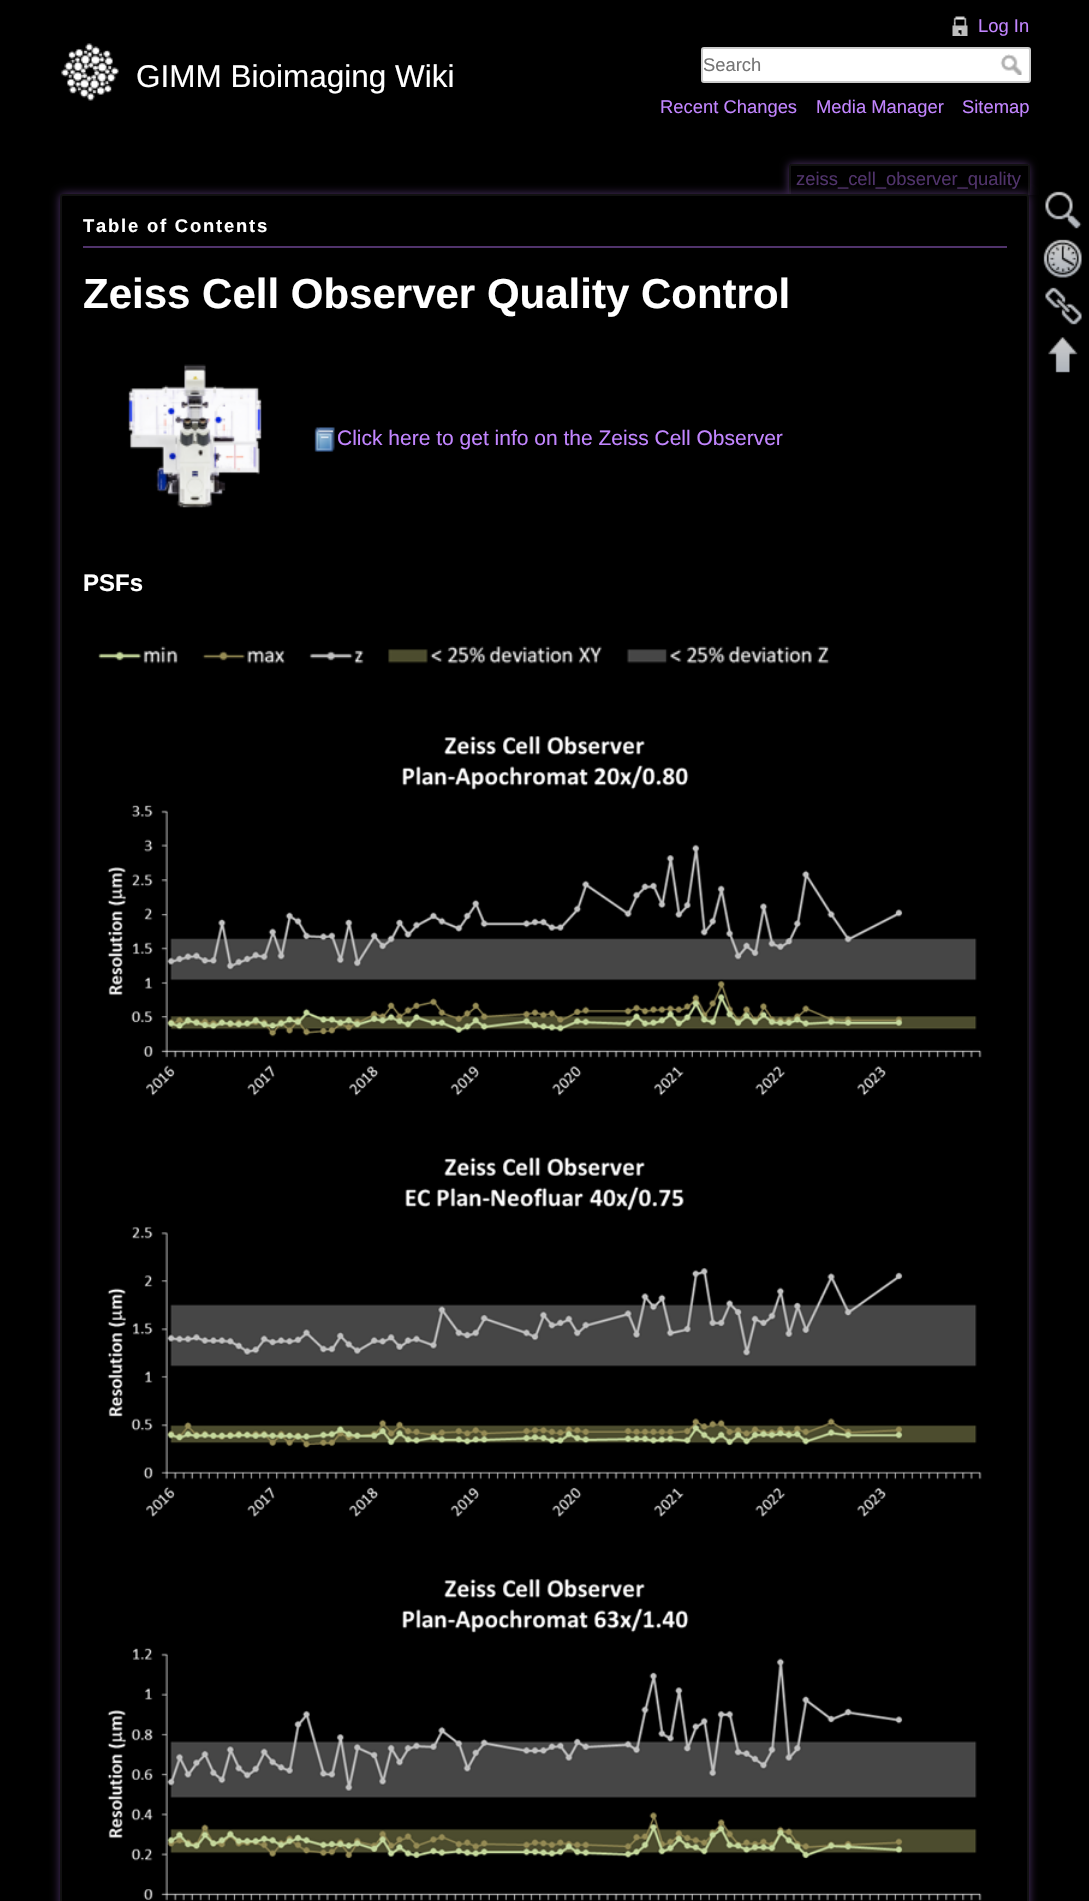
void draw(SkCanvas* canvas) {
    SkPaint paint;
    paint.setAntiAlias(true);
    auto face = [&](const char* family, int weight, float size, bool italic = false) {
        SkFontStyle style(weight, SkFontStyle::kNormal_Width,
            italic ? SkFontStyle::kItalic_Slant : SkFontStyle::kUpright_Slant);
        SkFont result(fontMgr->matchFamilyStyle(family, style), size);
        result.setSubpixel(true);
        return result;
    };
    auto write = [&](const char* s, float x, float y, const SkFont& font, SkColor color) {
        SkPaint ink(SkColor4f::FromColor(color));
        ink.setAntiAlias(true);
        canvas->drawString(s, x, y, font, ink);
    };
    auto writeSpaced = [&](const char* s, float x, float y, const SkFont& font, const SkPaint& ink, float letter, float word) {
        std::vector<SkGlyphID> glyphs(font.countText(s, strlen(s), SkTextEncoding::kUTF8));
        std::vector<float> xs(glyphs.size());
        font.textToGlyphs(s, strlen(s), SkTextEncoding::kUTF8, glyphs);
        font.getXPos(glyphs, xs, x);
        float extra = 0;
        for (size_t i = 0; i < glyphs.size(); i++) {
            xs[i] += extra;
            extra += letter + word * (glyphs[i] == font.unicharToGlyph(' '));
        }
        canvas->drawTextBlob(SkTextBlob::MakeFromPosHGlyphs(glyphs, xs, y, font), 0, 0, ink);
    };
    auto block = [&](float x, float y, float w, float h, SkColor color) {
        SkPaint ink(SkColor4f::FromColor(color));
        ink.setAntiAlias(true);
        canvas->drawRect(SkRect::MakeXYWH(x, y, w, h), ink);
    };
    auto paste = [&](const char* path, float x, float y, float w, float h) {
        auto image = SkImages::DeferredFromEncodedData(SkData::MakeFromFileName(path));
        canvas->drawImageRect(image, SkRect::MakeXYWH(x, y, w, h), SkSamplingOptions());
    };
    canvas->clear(SK_ColorBLACK);
    paste("pic1.png", 61, 43, 58, 58);
    auto kFont1 = face("Liberation Sans", 400, 31.5f);
    write("GIMM Bioimaging Wiki", 136, 87, kFont1, SK_ColorWHITE);
    paste("pic2.png", 952, 16, 16, 20);
    auto kFont2 = face("Liberation Sans", 400, 18.4f);
    write("Log In", 978, 32, kFont2, SkColorSetRGB(194, 133, 255));
    paint.setColor(SK_ColorWHITE);
    canvas->drawRoundRect(SkRect::MakeXYWH(702, 48, 328, 34), 2, 2, paint);
    paint.setStyle(SkPaint::kStroke_Style);
    paint.setStrokeWidth(2);
    paint.setColor(SkColorSetRGB(204, 204, 204));
    canvas->drawRoundRect(SkRect::MakeXYWH(702, 48, 328, 34), 2, 2, paint);
    write("Search", 703, 71, kFont2, SkColorSetRGB(117, 117, 117));
    paste("pic3.png", 1000, 54, 22, 21);
    write("Recent Changes", 660, 113, kFont2, SkColorSetRGB(194, 133, 255));
    write("Media Manager", 816, 113, kFont2, SkColorSetRGB(194, 133, 255));
    write("Sitemap", 962, 113, kFont2, SkColorSetRGB(194, 133, 255));
    canvas->save();
    canvas->clipRect(SkRect::MakeXYWH(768, 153, 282, 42));
    canvas->clipPath(SkPathBuilder(SkPathFillType::kEvenOdd).moveTo(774, 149).lineTo(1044, 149).lineTo(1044, 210).lineTo(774, 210).close().moveTo(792, 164).lineTo(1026, 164).cubicTo(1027.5f, 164, 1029, 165.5f, 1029, 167).lineTo(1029, 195).lineTo(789, 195).lineTo(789, 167).cubicTo(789, 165.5f, 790.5f, 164, 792, 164).close().detach(), true);
    paint.setStyle(SkPaint::kFill_Style);
    paint.setColor(SkColorSetRGB(80, 51, 107));
    paint.setMaskFilter(SkMaskFilter::MakeBlur(kNormal_SkBlurStyle, 4.5f));
    canvas->drawRoundRect(SkRect::MakeXYWH(789, 164, 240, 31), 3, 3, paint);
    paint.setMaskFilter(nullptr);
    canvas->restore();
    block(791, 164, 237, 2, SkColorSetRGB(17, 17, 17));
    block(1028, 165, 2, 30, SkColorSetRGB(17, 17, 17));
    block(789, 165, 2, 30, SkColorSetRGB(17, 17, 17));
    write("zeiss_cell_observer_quality", 796, 185, kFont2, SkColorSetRGB(80, 51, 107));
    paint.setMaskFilter(SkMaskFilter::MakeBlur(kNormal_SkBlurStyle, 5));
    canvas->drawRoundRect(SkRect::MakeXYWH(60, 194, 969, 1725), 3, 3, paint);
    paint.setMaskFilter(nullptr);
    paint.setColor(SK_ColorBLACK);
    canvas->drawRoundRect(SkRect::MakeXYWH(61, 195, 967, 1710), 2, 2, paint);
    paint.setStyle(SkPaint::kStroke_Style);
    paint.setColor(SkColorSetRGB(17, 17, 17));
    canvas->drawRoundRect(SkRect::MakeXYWH(61, 195, 967, 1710), 2, 2, paint);
    block(83, 246, 924, 2, SkColorSetRGB(80, 51, 107));
    auto kFont3 = face("Liberation Sans", 700, 18.4f);
    paint.setStyle(SkPaint::kFill_Style);
    paint.setColor(SK_ColorWHITE);
    writeSpaced("Table of Contents", 83, 232, kFont3, paint, 1.8f, 0);
    auto kFont4 = face("Liberation Sans", 700, 42);
    write("Zeiss Cell Observer Quality Control", 83, 308, kFont4, SK_ColorWHITE);
    paste("pic4.png", 128, 364, 134, 144);
    paste("pic5.png", 314, 427, 21, 25);
    auto kFont5 = face("Liberation Sans", 400, 21);
    write("Click here to get info on the Zeiss Cell Observer", 337, 445, kFont5, SkColorSetRGB(194, 133, 255));
    auto kFont6 = face("Liberation Sans", 700, 24);
    write("PSFs", 83, 591, kFont6, SK_ColorWHITE);
    paste("pic6.png", 98, 646, 732, 18);
    paste("pic7.png", 107, 735, 875, 361);
    paste("pic8.png", 107, 1157, 875, 360);
    paste("pic9.png", 107, 1578, 875, 323);
    paste("pic10.png", 1045, 191, 37, 38);
    paste("pic11.png", 1043, 239, 39, 39);
    paste("pic12.png", 1045, 287, 37, 38);
    paste("pic13.png", 1048, 337, 30, 36);
}
